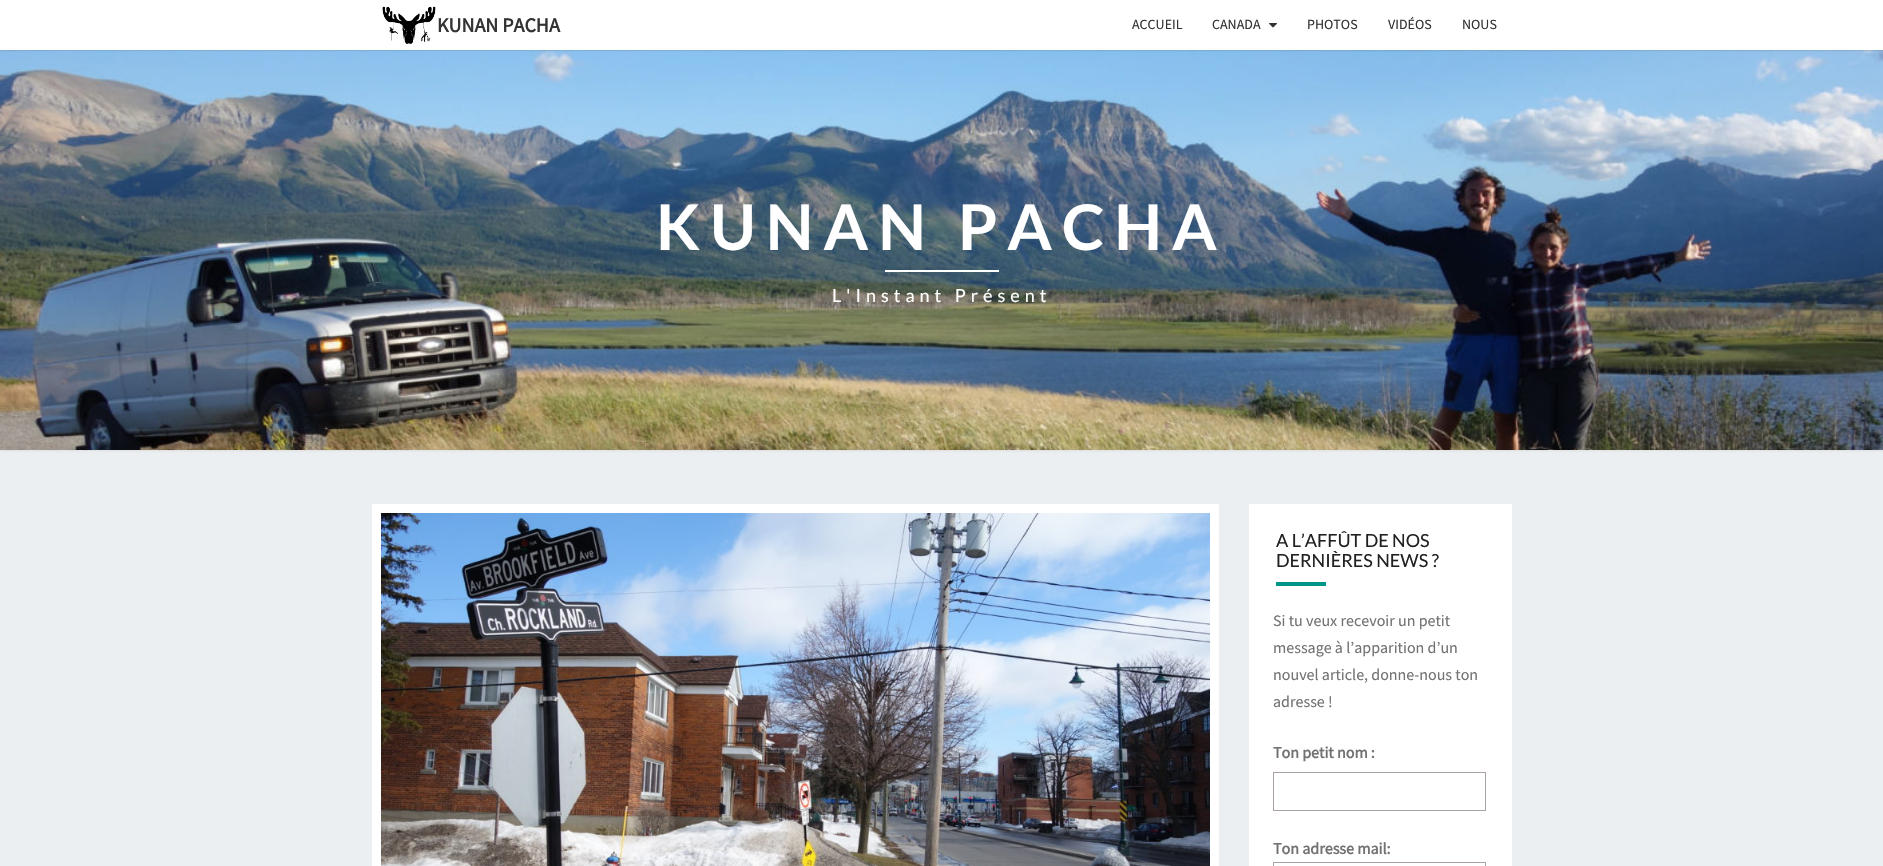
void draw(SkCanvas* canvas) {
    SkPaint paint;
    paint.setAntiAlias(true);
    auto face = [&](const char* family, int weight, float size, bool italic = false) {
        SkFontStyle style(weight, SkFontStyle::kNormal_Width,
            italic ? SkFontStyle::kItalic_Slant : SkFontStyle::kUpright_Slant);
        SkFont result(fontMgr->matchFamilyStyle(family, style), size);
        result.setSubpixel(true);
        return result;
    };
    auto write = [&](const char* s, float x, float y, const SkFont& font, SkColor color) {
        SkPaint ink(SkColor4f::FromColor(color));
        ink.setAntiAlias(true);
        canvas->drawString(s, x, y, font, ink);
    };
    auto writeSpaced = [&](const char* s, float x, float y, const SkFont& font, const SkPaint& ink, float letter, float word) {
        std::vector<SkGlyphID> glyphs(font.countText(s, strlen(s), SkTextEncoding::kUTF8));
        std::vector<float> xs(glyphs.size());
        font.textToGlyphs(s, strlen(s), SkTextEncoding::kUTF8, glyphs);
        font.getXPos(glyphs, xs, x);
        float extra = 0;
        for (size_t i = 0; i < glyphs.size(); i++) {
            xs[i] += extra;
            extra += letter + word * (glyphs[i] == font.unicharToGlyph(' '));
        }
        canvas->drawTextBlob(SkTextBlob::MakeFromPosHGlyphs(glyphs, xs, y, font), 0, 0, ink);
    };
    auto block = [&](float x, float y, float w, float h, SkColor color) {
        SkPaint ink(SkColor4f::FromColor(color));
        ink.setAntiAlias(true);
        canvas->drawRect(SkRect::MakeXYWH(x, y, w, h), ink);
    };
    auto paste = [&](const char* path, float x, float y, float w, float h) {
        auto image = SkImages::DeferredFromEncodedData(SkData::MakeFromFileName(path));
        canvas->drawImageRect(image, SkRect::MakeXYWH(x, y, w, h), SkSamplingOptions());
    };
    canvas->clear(SkColorSetRGB(236, 239, 241));
    paint.setColor(SkColorSetARGB(77, 182, 182, 182));
    paint.setMaskFilter(SkMaskFilter::MakeBlur(kNormal_SkBlurStyle, 1));
    canvas->drawRect(SkRect::MakeXYWH(-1, 49, 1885, 402), paint);
    paint.setMaskFilter(nullptr);
    paste("pic3.png", 0, 50, 1883, 400);
    paint.setColor(SkColorSetARGB(51, 100, 100, 100));
    paint.setMaskFilter(SkMaskFilter::MakeBlur(kNormal_SkBlurStyle, 0.5f));
    canvas->drawRect(SkRect::MakeXYWH(0, 1, 1883, 50), paint);
    paint.setMaskFilter(nullptr);
    block(0, 0, 1883, 50, SK_ColorWHITE);
    paste("pic1.png", 382, 6, 54, 38);
    auto kFont1 = face("Source Sans Pro", 700, 20);
    write("KUNAN PACHA", 437, 32, kFont1, SkColorSetRGB(51, 51, 51));
    auto kFont2 = face("Source Sans Pro", 400, 14);
    write("ACCUEIL", 1132, 29, kFont2, SkColorSetRGB(51, 51, 51));
    write("CANADA", 1212, 29, kFont2, SkColorSetRGB(51, 51, 51));
    paste("pic2.png", 1269, 23, 8, 5);
    write("PHOTOS", 1307, 29, kFont2, SkColorSetRGB(51, 51, 51));
    write("VIDÉOS", 1388, 29, kFont2, SkColorSetRGB(51, 51, 51));
    write("NOUS", 1462, 29, kFont2, SkColorSetRGB(51, 51, 51));
    auto kFont3 = face("Lato", 700, 63);
    paint.setColor(SK_ColorWHITE);
    writeSpaced("KUNAN PACHA", 656, 250, kFont3, paint, 10, 0);
    block(885, 270, 114, 2, SK_ColorWHITE);
    auto kFont4 = face("Lato", 400, 18);
    writeSpaced("L'Instant Présent", 832, 302, kFont4, paint, 5, 0);
    block(372, 504, 847, 362, SK_ColorWHITE);
    paste("pic4.png", 381, 513, 829, 353);
    block(1249, 504, 263, 362, SK_ColorWHITE);
    write("A L’AFFÛT DE NOS", 1276, 547, kFont4, SkColorSetRGB(33, 33, 33));
    write("DERNIÈRES NEWS ?", 1276, 567, kFont4, SkColorSetRGB(33, 33, 33));
    block(1276, 582, 50, 4, SkColorSetRGB(0, 150, 136));
    auto kFont5 = face("Source Sans Pro", 400, 16);
    write("Si tu veux recevoir un petit", 1273, 626, kFont5, SkColorSetRGB(114, 114, 114));
    write("message à l’apparition d’un", 1273, 653, kFont5, SkColorSetRGB(114, 114, 114));
    write("nouvel article, donne-nous ton", 1273, 680, kFont5, SkColorSetRGB(114, 114, 114));
    write("adresse !", 1273, 707, kFont5, SkColorSetRGB(114, 114, 114));
    auto kFont6 = face("Source Sans Pro", 700, 16);
    write("Ton petit nom :", 1273, 758, kFont6, SkColorSetRGB(114, 114, 114));
    paint.setStyle(SkPaint::kStroke_Style);
    paint.setStrokeWidth(1);
    paint.setColor(SkColorSetRGB(170, 161, 168));
    canvas->drawRect(SkRect::MakeXYWH(1273.5f, 772.5f, 212, 38), paint);
    write("Ton adresse mail:", 1273, 854, kFont6, SkColorSetRGB(114, 114, 114));
    canvas->drawRect(SkRect::MakeXYWH(1273.5f, 862.5f, 212, 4), paint);
}
